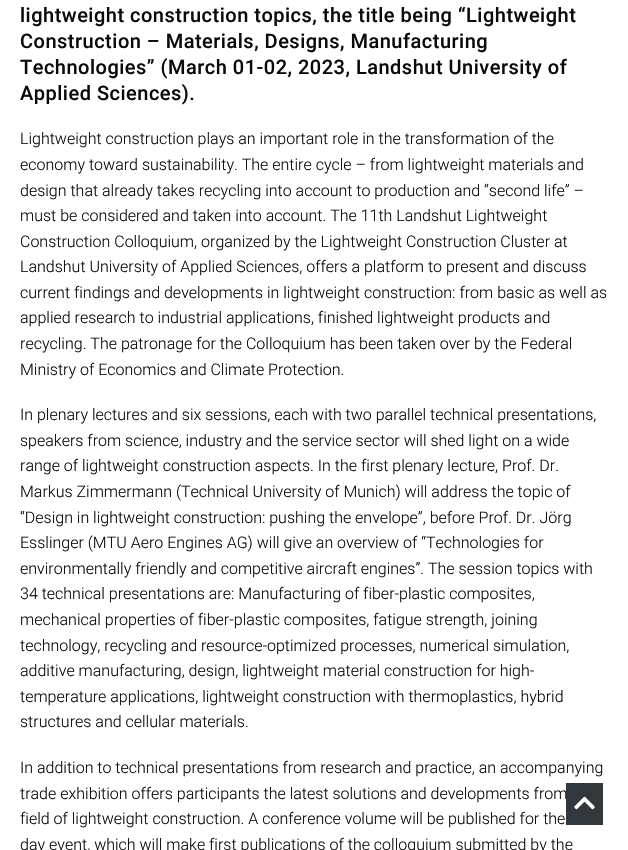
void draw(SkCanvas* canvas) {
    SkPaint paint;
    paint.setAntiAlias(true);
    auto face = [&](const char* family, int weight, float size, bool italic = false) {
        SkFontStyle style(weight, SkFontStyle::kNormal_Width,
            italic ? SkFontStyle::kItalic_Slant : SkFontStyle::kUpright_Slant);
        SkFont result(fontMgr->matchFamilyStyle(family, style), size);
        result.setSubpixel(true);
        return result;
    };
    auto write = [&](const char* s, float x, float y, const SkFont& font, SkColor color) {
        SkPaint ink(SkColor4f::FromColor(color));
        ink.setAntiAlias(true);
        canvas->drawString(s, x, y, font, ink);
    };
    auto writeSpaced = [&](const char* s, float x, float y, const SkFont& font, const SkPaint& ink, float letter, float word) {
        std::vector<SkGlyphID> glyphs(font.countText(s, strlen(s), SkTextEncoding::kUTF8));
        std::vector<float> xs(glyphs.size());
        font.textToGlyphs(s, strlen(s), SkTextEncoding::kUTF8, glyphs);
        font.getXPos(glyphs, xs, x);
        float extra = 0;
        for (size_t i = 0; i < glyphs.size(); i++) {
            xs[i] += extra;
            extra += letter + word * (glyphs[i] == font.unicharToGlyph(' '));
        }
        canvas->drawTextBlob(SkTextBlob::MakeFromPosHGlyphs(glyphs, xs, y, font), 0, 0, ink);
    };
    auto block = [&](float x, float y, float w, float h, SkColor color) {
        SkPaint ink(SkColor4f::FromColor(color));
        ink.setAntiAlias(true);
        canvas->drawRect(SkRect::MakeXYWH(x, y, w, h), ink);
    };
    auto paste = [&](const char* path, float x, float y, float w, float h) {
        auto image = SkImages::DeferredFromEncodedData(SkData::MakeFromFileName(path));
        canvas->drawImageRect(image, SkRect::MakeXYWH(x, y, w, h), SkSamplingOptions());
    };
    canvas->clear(SK_ColorWHITE);
    auto kFont1 = face("Roboto", 500, 20);
    paint.setColor(SkColorSetRGB(10, 10, 10));
    writeSpaced("lightweight construction topics, the title being “Lightweight", 20, 22, kFont1, paint, 0.5f, 0);
    writeSpaced("Construction – Materials, Designs, Manufacturing", 20, 48, kFont1, paint, 0.5f, 0);
    writeSpaced("Technologies” (March 01-02, 2023, Landshut University of", 20, 74, kFont1, paint, 0.5f, 0);
    writeSpaced("Applied Sciences).", 20, 100, kFont1, paint, 0.5f, 0);
    auto kFont2 = face("Roboto", 300, 16);
    write("Lightweight construction plays an important role in the transformation of the", 20, 144, kFont2, SkColorSetRGB(10, 10, 10));
    write("economy toward sustainability. The entire cycle – from lightweight materials and", 20, 170, kFont2, SkColorSetRGB(10, 10, 10));
    write("design that already takes recycling into account to production and “second life” –", 20, 196, kFont2, SkColorSetRGB(10, 10, 10));
    write("must be considered and taken into account. The 11th Landshut Lightweight", 20, 221, kFont2, SkColorSetRGB(10, 10, 10));
    write("Construction Colloquium, organized by the Lightweight Construction Cluster at", 20, 247, kFont2, SkColorSetRGB(10, 10, 10));
    write("Landshut University of Applied Sciences, offers a platform to present and discuss", 20, 272, kFont2, SkColorSetRGB(10, 10, 10));
    write("current findings and developments in lightweight construction: from basic as well as", 20, 298, kFont2, SkColorSetRGB(10, 10, 10));
    write("applied research to industrial applications, finished lightweight products and", 20, 323, kFont2, SkColorSetRGB(10, 10, 10));
    write("recycling. The patronage for the Colloquium has been taken over by the Federal", 20, 349, kFont2, SkColorSetRGB(10, 10, 10));
    write("Ministry of Economics and Climate Protection.", 20, 375, kFont2, SkColorSetRGB(10, 10, 10));
    write("In plenary lectures and six sessions, each with two parallel technical presentations,", 20, 420, kFont2, SkColorSetRGB(10, 10, 10));
    write("speakers from science, industry and the service sector will shed light on a wide", 20, 446, kFont2, SkColorSetRGB(10, 10, 10));
    write("range of lightweight construction aspects. In the first plenary lecture, Prof. Dr.", 20, 471, kFont2, SkColorSetRGB(10, 10, 10));
    write("Markus Zimmermann (Technical University of Munich) will address the topic of", 20, 497, kFont2, SkColorSetRGB(10, 10, 10));
    write("“Design in lightweight construction: pushing the envelope”, before Prof. Dr. Jörg", 20, 523, kFont2, SkColorSetRGB(10, 10, 10));
    write("Esslinger (MTU Aero Engines AG) will give an overview of “Technologies for", 20, 548, kFont2, SkColorSetRGB(10, 10, 10));
    write("environmentally friendly and competitive aircraft engines”. The session topics with", 20, 574, kFont2, SkColorSetRGB(10, 10, 10));
    write("34 technical presentations are: Manufacturing of fiber-plastic composites,", 20, 599, kFont2, SkColorSetRGB(10, 10, 10));
    write("mechanical properties of fiber-plastic composites, fatigue strength, joining", 20, 625, kFont2, SkColorSetRGB(10, 10, 10));
    write("technology, recycling and resource-optimized processes, numerical simulation,", 20, 651, kFont2, SkColorSetRGB(10, 10, 10));
    write("additive manufacturing, design, lightweight material construction for high-", 20, 676, kFont2, SkColorSetRGB(10, 10, 10));
    write("temperature applications, lightweight construction with thermoplastics, hybrid", 20, 702, kFont2, SkColorSetRGB(10, 10, 10));
    write("structures and cellular materials.", 20, 727, kFont2, SkColorSetRGB(10, 10, 10));
    write("In addition to technical presentations from research and practice, an accompanying", 20, 773, kFont2, SkColorSetRGB(10, 10, 10));
    write("trade exhibition offers participants the latest solutions and developments from", 20, 799, kFont2, SkColorSetRGB(10, 10, 10));
    write("field of lightweight construction. A conference volume will be published for the", 20, 824, kFont2, SkColorSetRGB(10, 10, 10));
    write("day event, which will make first publications of the colloquium submitted by the", 20, 850, kFont2, SkColorSetRGB(10, 10, 10));
    block(566, 783, 37, 42, SkColorSetRGB(50, 55, 59));
    paste("pic1.png", 574, 796, 21, 14);
}
